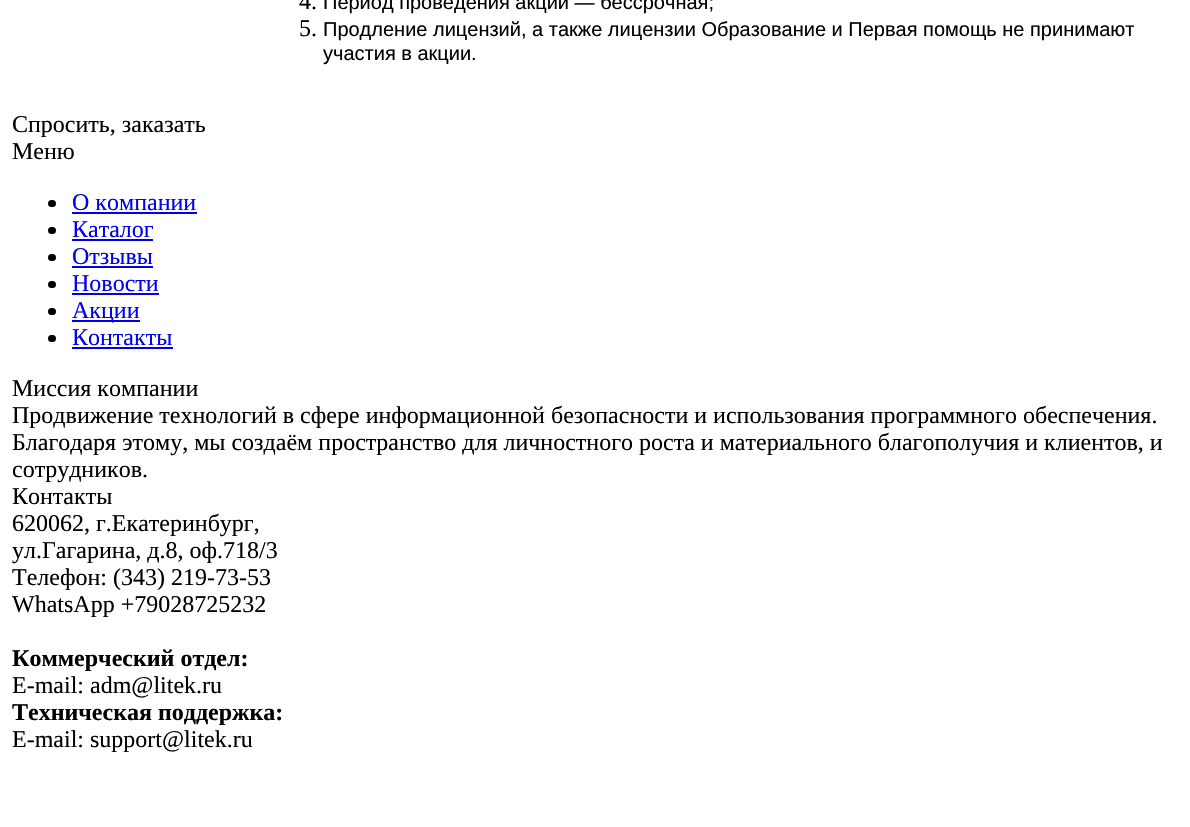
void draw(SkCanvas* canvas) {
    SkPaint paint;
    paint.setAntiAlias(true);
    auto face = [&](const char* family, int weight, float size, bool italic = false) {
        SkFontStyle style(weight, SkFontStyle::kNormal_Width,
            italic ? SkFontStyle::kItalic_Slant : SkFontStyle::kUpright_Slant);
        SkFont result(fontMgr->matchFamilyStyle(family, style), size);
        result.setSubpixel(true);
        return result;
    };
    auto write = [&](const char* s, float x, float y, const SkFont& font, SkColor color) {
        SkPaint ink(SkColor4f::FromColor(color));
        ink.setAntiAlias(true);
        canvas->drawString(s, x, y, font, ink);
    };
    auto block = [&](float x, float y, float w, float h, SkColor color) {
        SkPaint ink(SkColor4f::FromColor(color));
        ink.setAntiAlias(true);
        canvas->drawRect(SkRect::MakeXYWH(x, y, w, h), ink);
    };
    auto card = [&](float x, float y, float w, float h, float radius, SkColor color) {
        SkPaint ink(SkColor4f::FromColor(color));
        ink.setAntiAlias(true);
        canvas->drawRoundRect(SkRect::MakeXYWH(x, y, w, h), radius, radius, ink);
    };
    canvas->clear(SK_ColorWHITE);
    auto kFont1 = face("Liberation Serif", 400, 24);
    write("4.", 299, 9, kFont1, SK_ColorBLACK);
    auto kFont2 = face("Liberation Sans", 400, 20);
    write("Период проведения акции — бессрочная;", 323, 9, kFont2, SK_ColorBLACK);
    write("5.", 299, 36, kFont1, SK_ColorBLACK);
    write("Продление лицензий, а также лицензии Образование и Первая помощь не принимают", 323, 36, kFont2, SK_ColorBLACK);
    write("участия в акции.", 323, 60, kFont2, SK_ColorBLACK);
    write("Спросить, заказать", 12, 132, kFont1, SK_ColorBLACK);
    write("Меню", 12, 159, kFont1, SK_ColorBLACK);
    card(48, 200, 8, 7, 3.5f, SK_ColorBLACK);
    write("О компании", 72, 210, kFont1, SkColorSetRGB(0, 0, 238));
    block(72, 212, 125, 2, SkColorSetRGB(0, 0, 238));
    card(48, 227, 8, 7, 3.5f, SK_ColorBLACK);
    write("Каталог", 72, 237, kFont1, SkColorSetRGB(0, 0, 238));
    block(72, 239, 81, 2, SkColorSetRGB(0, 0, 238));
    card(48, 254, 8, 7, 3.5f, SK_ColorBLACK);
    write("Отзывы", 72, 264, kFont1, SkColorSetRGB(0, 0, 238));
    block(72, 266, 81, 2, SkColorSetRGB(0, 0, 238));
    card(48, 281, 8, 7, 3.5f, SK_ColorBLACK);
    write("Новости", 72, 291, kFont1, SkColorSetRGB(0, 0, 238));
    block(72, 293, 87, 2, SkColorSetRGB(0, 0, 238));
    card(48, 308, 8, 7, 3.5f, SK_ColorBLACK);
    block(72, 320, 68, 2, SkColorSetRGB(0, 0, 238));
    write("Акции", 72, 318, kFont1, SkColorSetRGB(0, 0, 238));
    card(48, 335, 8, 7, 3.5f, SK_ColorBLACK);
    write("Контакты", 72, 345, kFont1, SkColorSetRGB(0, 0, 238));
    block(72, 347, 101, 2, SkColorSetRGB(0, 0, 238));
    write("Миссия компании", 12, 396, kFont1, SK_ColorBLACK);
    write("Продвижение технологий в сфере информационной безопасности и использования программного обеспечения.", 12, 423, kFont1, SK_ColorBLACK);
    write("Благодаря этому, мы создаём пространство для личностного роста и материального благополучия и клиентов, и", 12, 450, kFont1, SK_ColorBLACK);
    write("сотрудников.", 12, 477, kFont1, SK_ColorBLACK);
    write("Контакты", 12, 504, kFont1, SK_ColorBLACK);
    write("620062, г.Екатеринбург,", 12, 531, kFont1, SK_ColorBLACK);
    write("ул.Гагарина, д.8, оф.718/3", 12, 558, kFont1, SK_ColorBLACK);
    write("Телефон: (343) 219-73-53", 12, 585, kFont1, SK_ColorBLACK);
    write("WhatsApp +79028725232", 12, 612, kFont1, SK_ColorBLACK);
    auto kFont3 = face("Liberation Serif", 700, 24);
    write("Коммерческий отдел:", 12, 666, kFont3, SK_ColorBLACK);
    write("E-mail: adm@litek.ru", 12, 693, kFont1, SK_ColorBLACK);
    write("Техническая поддержка:", 12, 720, kFont3, SK_ColorBLACK);
    write("E-mail: support@litek.ru", 12, 747, kFont1, SK_ColorBLACK);
}
